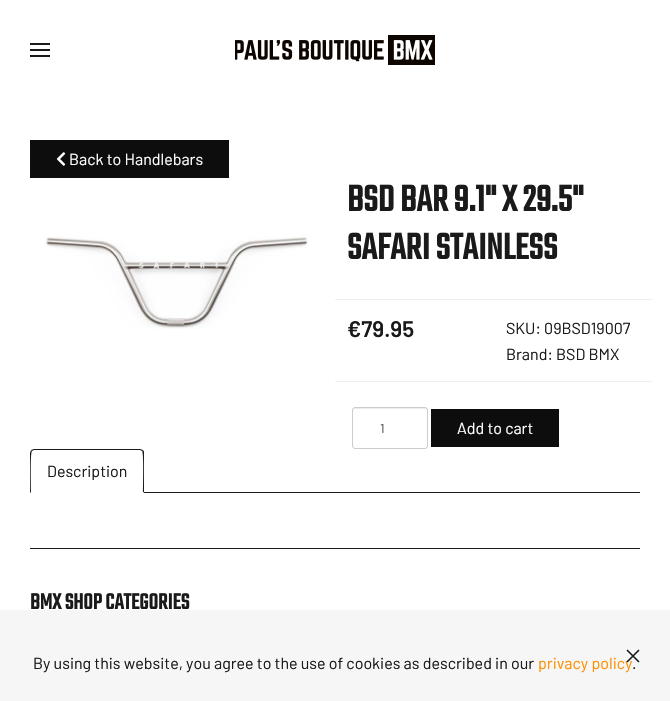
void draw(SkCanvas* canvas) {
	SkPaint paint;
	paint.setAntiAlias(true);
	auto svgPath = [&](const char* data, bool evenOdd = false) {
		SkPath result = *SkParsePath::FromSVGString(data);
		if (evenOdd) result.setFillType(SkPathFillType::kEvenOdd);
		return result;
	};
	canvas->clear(0xffffffff);
	paint.setColor(0xff1a1a1a);
	canvas->drawRect(SkRect::MakeXYWH(30, 43, 20, 2), paint);
	canvas->drawRect(SkRect::MakeXYWH(30, 49, 20, 2), paint);
	canvas->drawRect(SkRect::MakeXYWH(30, 55, 20, 2), paint);
	canvas->drawImageRect(SkImages::DeferredFromEncodedData(SkData::MakeFromFileName("img1.png")), SkRect::MakeXYWH(235, 35, 200, 30), SkSamplingOptions());
	paint.setColor(0xff0d0d0d);
	canvas->drawRect(SkRect::MakeXYWH(30, 140, 199, 38), paint);
	canvas->drawImageRect(SkImages::DeferredFromEncodedData(SkData::MakeFromFileName("img2.png")), SkRect::MakeXYWH(56, 152, 10, 14), SkSamplingOptions());
	SkFont f1(fontMgr->matchFamilyStyle("Barlow", SkFontStyle::Normal()), 16);
	f1.setSubpixel(true);
	paint.setColor(0xffffffff);
	canvas->drawString("Back to Handlebars", 69, 165, f1, paint);
	canvas->drawImageRect(SkImages::DeferredFromEncodedData(SkData::MakeFromFileName("img3.png")), SkRect::MakeXYWH(45, 236, 263, 93), SkSamplingOptions());
	SkFont f2(fontMgr->matchFamilyStyle("Teko", SkFontStyle::Bold()), 40);
	f2.setSubpixel(true);
	paint.setColor(0xff1a1a1a);
	canvas->drawString("BSD BAR 9.1\" X 29.5\"", 347, 211, f2, paint);
	canvas->drawString("SAFARI STAINLESS", 347, 259, f2, paint);
	paint.setColor(0xffefefef);
	canvas->drawRect(SkRect::MakeXYWH(335, 299, 317, 1), paint);
	canvas->drawRect(SkRect::MakeXYWH(335, 381, 317, 1), paint);
	SkFont f3(fontMgr->matchFamilyStyle("Barlow", SkFontStyle(600, SkFontStyle::kNormal_Width, SkFontStyle::kUpright_Slant)), 22.5);
	f3.setSubpixel(true);
	paint.setColor(0xff1a1a1a);
	canvas->drawString("€79.95", 347, 337, f3, paint);
	canvas->drawString("SKU: 09BSD19007", 506, 334, f1, paint);
	canvas->drawString("Brand: BSD BMX", 506, 360, f1, paint);
	paint.setColor(0xffececec);
	canvas->drawPath(svgPath("M355 409H425C426 409 427 410 427 411C427 405 417 408 413 408H367C363 408 353 405 353 411C353 410 354 409 355 409Z"), paint);
	paint.setStroke(true);
	paint.setStrokeWidth(1);
	paint.setColor(0xffcccccc);
	canvas->drawRoundRect(SkRect::MakeXYWH(352.5, 407.5, 75, 41), 2.5, 2.5, paint);
	SkFont f4(fontMgr->matchFamilyStyle("Barlow", SkFontStyle::Normal()), 13);
	f4.setSubpixel(true);
	paint.setStroke(false);
	paint.setColor(0xff555555);
	canvas->drawString("1", 380, 433, f4, paint);
	paint.setColor(0xff0d0d0d);
	canvas->drawRect(SkRect::MakeXYWH(431, 409, 128, 38), paint);
	paint.setColor(0xffffffff);
	canvas->drawString("Add to cart", 457, 434, f1, paint);
	paint.setColor(0xff1a1a1a);
	canvas->drawRect(SkRect::MakeXYWH(144, 492, 496, 1), paint);
	canvas->drawPath(svgPath("M34 449L31 450L32 451L34 450H140L142 451L143 450L140 449Z"), paint);
	canvas->drawPath(svgPath("M144 493V453C144 452 144 451 143 450L142 451C144 453 143 487 143 492Z"), paint);
	paint.setColor(0xffffffff);
	canvas->drawPath(svgPath("M144 493L143 492H31L30 493Z"), paint);
	paint.setColor(0xff1a1a1a);
	canvas->drawPath(svgPath("M30 493L31 492C31 487 30 453 32 451L31 450L30 453Z"), paint);
	canvas->drawString("Description", 47, 477, f1, paint);
	canvas->drawRect(SkRect::MakeXYWH(30, 548, 610, 1), paint);
	SkFont f5(fontMgr->matchFamilyStyle("Teko", SkFontStyle::Bold()), 24);
	f5.setSubpixel(true);
	canvas->drawString("BMX SHOP CATEGORIES", 30, 609, f5, paint);
	paint.setColor(0xfff6f6f6);
	canvas->drawRect(SkRect::MakeXYWH(0, 610, 670, 91), paint);
	paint.setColor(0xffff9000);
	canvas->drawString("privacy policy", 538, 669, f1, paint);
	paint.setStroke(true);
	paint.setStrokeWidth(1.6);
	paint.setColor(0xff1a1a1a);
	canvas->drawPath(svgPath("M627 650L639 662M639 650L627 662"), paint);
	paint.setStroke(false);
	canvas->drawString("By using this website, you agree to the use of cookies as described in our", 33, 669, f1, paint);
	canvas->drawString(".", 632, 669, f1, paint);
}
